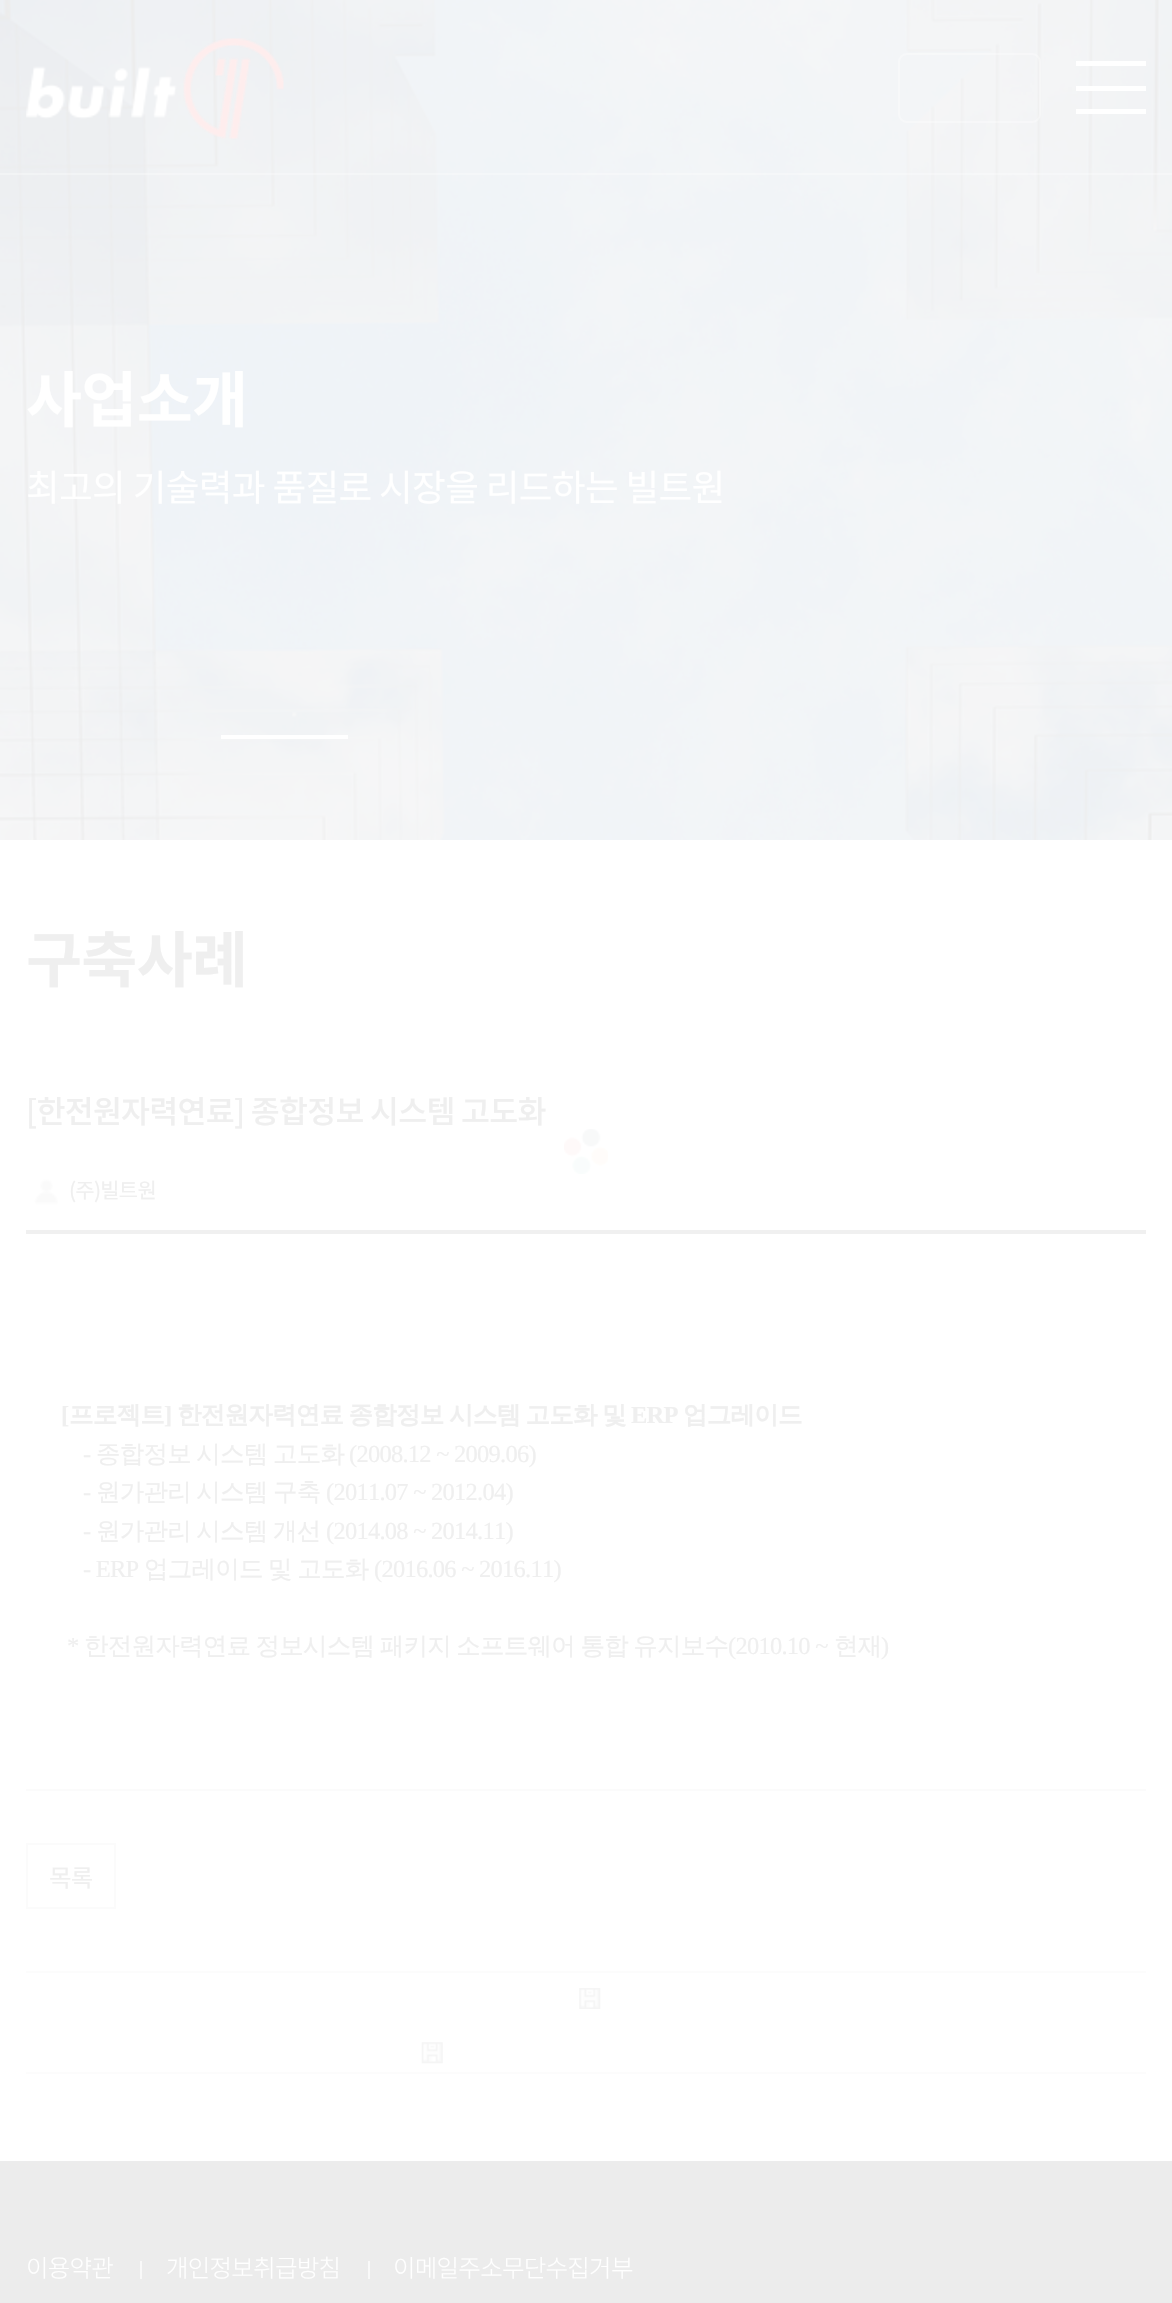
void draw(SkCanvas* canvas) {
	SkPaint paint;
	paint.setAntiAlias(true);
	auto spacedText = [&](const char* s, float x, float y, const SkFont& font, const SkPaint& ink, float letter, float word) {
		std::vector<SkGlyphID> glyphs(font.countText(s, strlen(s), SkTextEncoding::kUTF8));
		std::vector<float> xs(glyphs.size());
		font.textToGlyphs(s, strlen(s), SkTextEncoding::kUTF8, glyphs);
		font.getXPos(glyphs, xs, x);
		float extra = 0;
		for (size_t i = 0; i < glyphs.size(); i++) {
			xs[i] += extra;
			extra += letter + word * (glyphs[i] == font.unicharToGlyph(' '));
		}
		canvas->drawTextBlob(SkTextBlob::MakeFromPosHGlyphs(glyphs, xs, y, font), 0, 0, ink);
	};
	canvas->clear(0xffffffff);
	canvas->drawImageRect(SkImages::DeferredFromEncodedData(SkData::MakeFromFileName("img2.png")), SkRect::MakeXYWH(0, 0, 1172, 840), SkSamplingOptions());
	paint.setColor(0x4dffffff);
	canvas->drawRect(SkRect::MakeXYWH(0, 173, 1172, 2), paint);
	canvas->drawImageRect(SkImages::DeferredFromEncodedData(SkData::MakeFromFileName("img1.png")), SkRect::MakeXYWH(26, 38, 258, 102), SkSamplingOptions());
	paint.setStroke(true);
	paint.setStrokeWidth(2);
	paint.setColor(0x54ffffff);
	canvas->drawRoundRect(SkRect::MakeXYWH(899, 54, 141, 68), 8, 8, paint);
	paint.setStroke(false);
	paint.setColor(0xffffffff);
	canvas->drawRect(SkRect::MakeXYWH(1076, 61, 70, 5), paint);
	canvas->drawRect(SkRect::MakeXYWH(1076, 86, 70, 5), paint);
	canvas->drawRect(SkRect::MakeXYWH(1076, 109, 70, 5), paint);
	SkFont f1(fontMgr->matchFamilyStyle("Noto Sans KR", SkFontStyle::Bold()), 61);
	f1.setSubpixel(true);
	spacedText("사업소개", 26, 422, f1, paint, -0.75, 0);
	SkFont f2(fontMgr->matchFamilyStyle("Noto Sans KR", SkFontStyle::Normal()), 36.75);
	f2.setSubpixel(true);
	spacedText("최고의 기술력과 품질로 시장을 리드하는 빌트원", 26, 501, f2, paint, -0.75, 0);
	canvas->drawRect(SkRect::MakeXYWH(221, 735, 127, 4), paint);
	paint.setColor(0xffefefef);
	spacedText("구축사례", 26, 982, f1, paint, -0.75, 0);
	SkFont f3(fontMgr->matchFamilyStyle("Noto Sans KR", SkFontStyle(500, SkFontStyle::kNormal_Width, SkFontStyle::kUpright_Slant)), 31.5);
	f3.setSubpixel(true);
	spacedText("[한전원자력연료] 종합정보 시스템 고도화", 26, 1123, f3, paint, -0.75, 0);
	canvas->drawImageRect(SkImages::DeferredFromEncodedData(SkData::MakeFromFileName("img3.png")), SkRect::MakeXYWH(34, 1179, 25, 26), SkSamplingOptions());
	SkFont f4(fontMgr->matchFamilyStyle("Noto Sans KR", SkFontStyle::Normal()), 21);
	f4.setSubpixel(true);
	spacedText("(주)빌트원", 69, 1198, f4, paint, -0.75, 0);
	paint.setColor(0xfff0f0f0);
	canvas->drawRect(SkRect::MakeXYWH(26, 1230, 1120, 4), paint);
	paint.setColor(0xfffbfbfb);
	canvas->drawRect(SkRect::MakeXYWH(26, 1789, 1120, 2), paint);
	SkFont f5(fontMgr->matchFamilyStyle("Liberation Serif", SkFontStyle::Bold()), 24.5);
	f5.setSubpixel(true);
	paint.setColor(0xffefefef);
	spacedText("[", 61, 1423, f5, paint, -0.75, 0);
	SkFont f6(fontMgr->matchFamilyStyle("WenQuanYi Zen Hei", SkFontStyle::Bold()), 24.5);
	f6.setSubpixel(true);
	spacedText("프로젝트", 69, 1423, f6, paint, -0.75, 0);
	spacedText("]", 164, 1423, f5, paint, -0.75, 0);
	spacedText("한전원자력연료 종합정보 시스템 고도화 및", 177, 1423, f6, paint, -0.75, -1.25);
	spacedText("ERP", 631, 1423, f5, paint, -0.75, 0);
	spacedText("업그레이드", 683, 1423, f6, paint, -0.75, 0);
	SkFont f7(fontMgr->matchFamilyStyle("Liberation Serif", SkFontStyle::Normal()), 24.5);
	f7.setSubpixel(true);
	spacedText("-", 83, 1462, f7, paint, -0.75, 0);
	SkFont f8(fontMgr->matchFamilyStyle("WenQuanYi Zen Hei", SkFontStyle(500, SkFontStyle::kNormal_Width, SkFontStyle::kUpright_Slant)), 24.5);
	f8.setSubpixel(true);
	spacedText("종합정보 시스템 고도화", 96, 1462, f8, paint, -0.75, -1.25);
	spacedText("(2008.12 ~ 2009.06)", 349, 1462, f7, paint, -0.75, 0);
	spacedText("-", 83, 1500, f7, paint, -0.75, 0);
	spacedText("원가관리 시스템 구축", 96, 1500, f8, paint, -0.75, -1.25);
	spacedText("(2011.07 ~ 2012.04)", 326, 1500, f7, paint, -0.75, 0);
	spacedText("-", 83, 1539, f7, paint, -0.75, 0);
	spacedText("원가관리 시스템 개선", 96, 1539, f8, paint, -0.75, -1.25);
	spacedText("(2014.08 ~ 2014.11)", 326, 1539, f7, paint, -0.75, 0);
	spacedText("- ERP", 83, 1577, f7, paint, -0.75, 0);
	spacedText("업그레이드 및 고도화", 144, 1577, f8, paint, -0.75, -1.25);
	spacedText("(2016.06 ~ 2016.11)", 374, 1577, f7, paint, -0.75, 0);
	spacedText("*", 67, 1654, f7, paint, -0.75, 0);
	spacedText("한전원자력연료 정보시스템 패키지 소프트웨어 통합 유지보수", 84, 1654, f8, paint, -0.75, -1.25);
	spacedText("(2010.10 ~", 728, 1654, f7, paint, -0.75, 0);
	spacedText("현재", 834, 1654, f8, paint, -0.75, 0);
	spacedText(")", 881, 1654, f7, paint, -0.75, 0);
	paint.setStroke(true);
	paint.setColor(0xfffbfbfb);
	canvas->drawRect(SkRect::MakeXYWH(27, 1844, 88, 64), paint);
	SkFont f9(fontMgr->matchFamilyStyle("Noto Sans KR", SkFontStyle::Normal()), 24.5);
	f9.setSubpixel(true);
	paint.setStroke(false);
	paint.setColor(0xffefefef);
	spacedText("목록", 49, 1887, f9, paint, -0.75, 0);
	paint.setColor(0xfffcfcfc);
	canvas->drawRect(SkRect::MakeXYWH(26, 1971, 1120, 2), paint);
	canvas->drawImageRect(SkImages::DeferredFromEncodedData(SkData::MakeFromFileName("img4.png")), SkRect::MakeXYWH(579, 1988, 22, 21), SkSamplingOptions());
	canvas->drawRect(SkRect::MakeXYWH(26, 2072, 1120, 2), paint);
	canvas->drawImageRect(SkImages::DeferredFromEncodedData(SkData::MakeFromFileName("img5.png")), SkRect::MakeXYWH(421, 2042, 22, 22), SkSamplingOptions());
	canvas->drawImageRect(SkImages::DeferredFromEncodedData(SkData::MakeFromFileName("img6.png")), SkRect::MakeXYWH(564, 1129, 44, 45), SkSamplingOptions());
	paint.setColor(0xffececec);
	canvas->drawRect(SkRect::MakeXYWH(0, 2161, 1172, 142), paint);
	SkFont f10(fontMgr->matchFamilyStyle("Noto Sans KR", SkFontStyle(300, SkFontStyle::kNormal_Width, SkFontStyle::kUpright_Slant)), 24.5);
	f10.setSubpixel(true);
	paint.setColor(0xffffffff);
	spacedText("이용약관", 26, 2277, f10, paint, -0.75, 0);
	paint.setColor(0xfff9f9f9);
	canvas->drawRect(SkRect::MakeXYWH(140, 2261, 2, 18), paint);
	paint.setColor(0xffffffff);
	spacedText("개인정보취급방침", 166, 2277, f10, paint, -0.75, 0);
	paint.setColor(0xfff9f9f9);
	canvas->drawRect(SkRect::MakeXYWH(368, 2261, 2, 18), paint);
	paint.setColor(0xffffffff);
	spacedText("이메일주소무단수집거부", 393, 2277, f10, paint, -0.75, 0);
}
